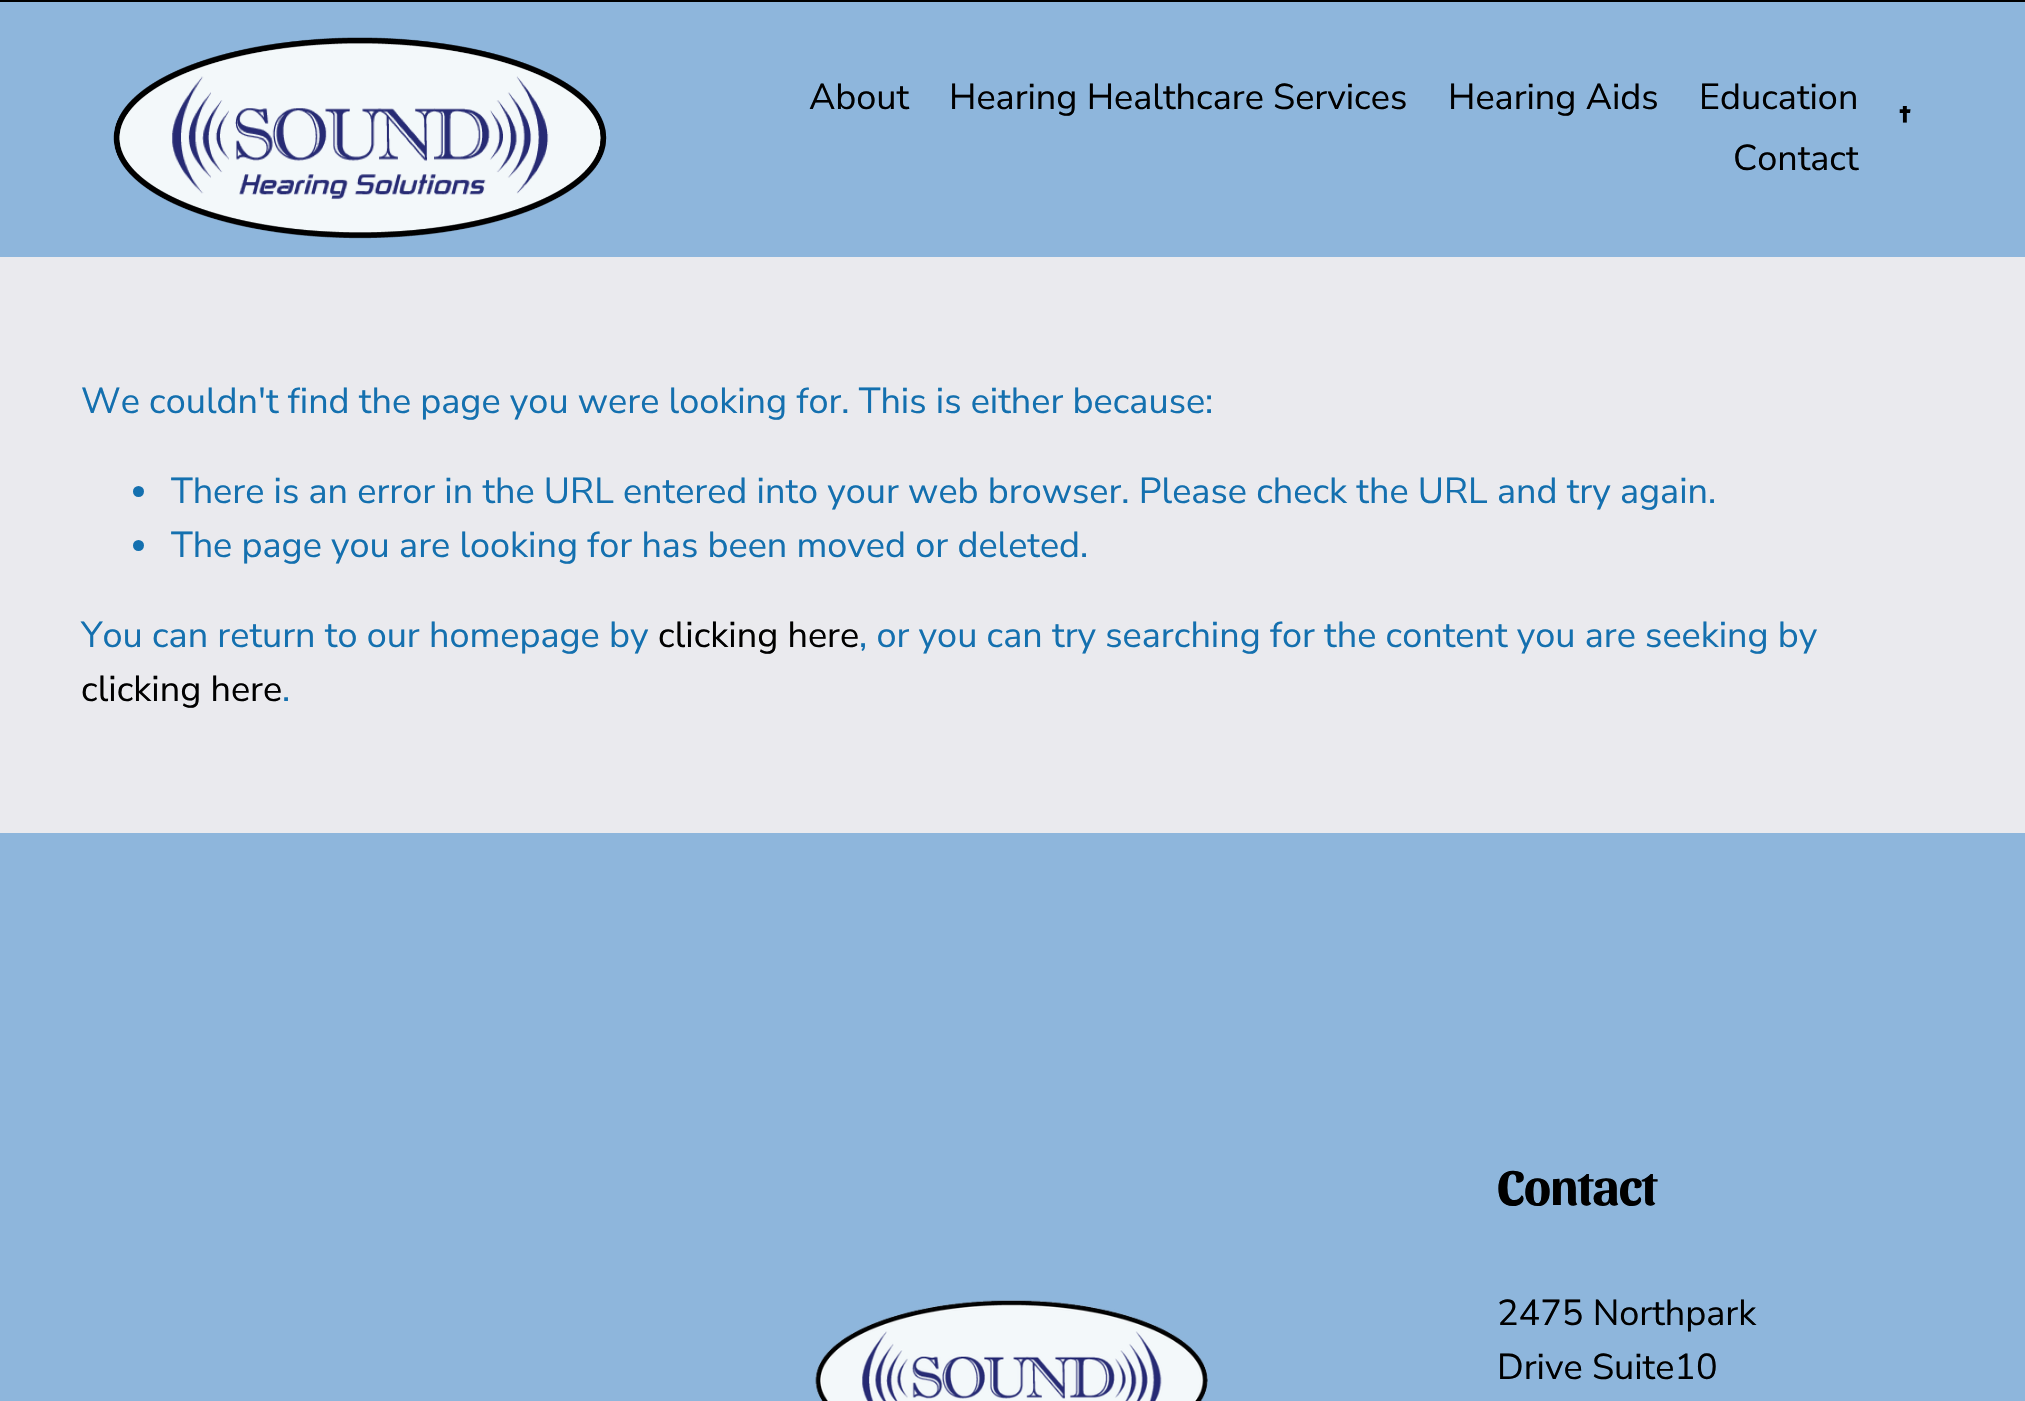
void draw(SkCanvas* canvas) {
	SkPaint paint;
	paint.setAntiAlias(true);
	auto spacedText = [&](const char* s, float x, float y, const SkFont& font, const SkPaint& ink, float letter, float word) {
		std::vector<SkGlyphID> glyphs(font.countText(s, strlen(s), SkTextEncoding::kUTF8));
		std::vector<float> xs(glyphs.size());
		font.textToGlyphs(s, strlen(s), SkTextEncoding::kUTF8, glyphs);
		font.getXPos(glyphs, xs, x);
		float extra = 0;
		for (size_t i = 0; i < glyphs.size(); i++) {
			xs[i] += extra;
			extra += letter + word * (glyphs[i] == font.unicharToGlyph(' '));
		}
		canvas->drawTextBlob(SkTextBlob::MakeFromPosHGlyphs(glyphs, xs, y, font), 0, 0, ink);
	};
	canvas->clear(0xffeaeaee);
	paint.setColor(0xff000000);
	canvas->drawRect(SkRect::MakeXYWH(0, 0, 2025, 2), paint);
	paint.setColor(0xff8eb6dc);
	canvas->drawRect(SkRect::MakeXYWH(0, 2, 2025, 255), paint);
	canvas->drawImageRect(SkImages::DeferredFromEncodedData(SkData::MakeFromFileName("img1.png")), SkRect::MakeXYWH(113, 37, 494, 202), SkSamplingOptions());
	SkFont f1(fontMgr->matchFamilyStyle("Nunito Sans", SkFontStyle::Normal()), 36);
	f1.setSubpixel(true);
	paint.setColor(0xff000000);
	canvas->drawString("About", 809, 109, f1, paint);
	canvas->drawString("Hearing Healthcare Services", 949, 109, f1, paint);
	canvas->drawString("Hearing Aids", 1448, 109, f1, paint);
	canvas->drawString("Education", 1699, 109, f1, paint);
	canvas->drawString("Contact", 1733, 170, f1, paint);
	canvas->drawImageRect(SkImages::DeferredFromEncodedData(SkData::MakeFromFileName("img2.png")), SkRect::MakeXYWH(1899, 106, 12, 17), SkSamplingOptions());
	paint.setColor(0xff1470af);
	canvas->drawString("We couldn't find the page you were looking for. This is either because:", 81, 413, f1, paint);
	canvas->drawCircle(138.5, 491.5, 5.5, paint);
	canvas->drawString("There is an error in the URL entered into your web browser. Please check the URL and try again.", 171, 503, f1, paint);
	canvas->drawCircle(138.5, 545.5, 5.5, paint);
	canvas->drawString("The page you are looking for has been moved or deleted.", 171, 557, f1, paint);
	canvas->drawString("You can return to our homepage by", 81, 647, f1, paint);
	paint.setColor(0xff000000);
	canvas->drawString("clicking here", 658, 647, f1, paint);
	paint.setColor(0xff1470af);
	canvas->drawString(", or you can try searching for the content you are seeking by", 859, 647, f1, paint);
	paint.setColor(0xff000000);
	canvas->drawString("clicking here", 81, 701, f1, paint);
	paint.setColor(0xff1470af);
	canvas->drawString(".", 282, 701, f1, paint);
	paint.setColor(0xff8eb6dc);
	canvas->drawRect(SkRect::MakeXYWH(0, 833, 2025, 568), paint);
	canvas->drawImageRect(SkImages::DeferredFromEncodedData(SkData::MakeFromFileName("img3.png")), SkRect::MakeXYWH(815, 1300, 393, 101), SkSamplingOptions());
	SkFont f2(fontMgr->matchFamilyStyle("Sansita", SkFontStyle::Bold()), 50.5);
	f2.setSubpixel(true);
	paint.setColor(0xff000000);
	spacedText("Contact", 1497, 1205, f2, paint, -1, 0);
	canvas->drawString("2475 Northpark", 1497, 1325, f1, paint);
	canvas->drawString("Drive Suite10", 1497, 1379, f1, paint);
}
